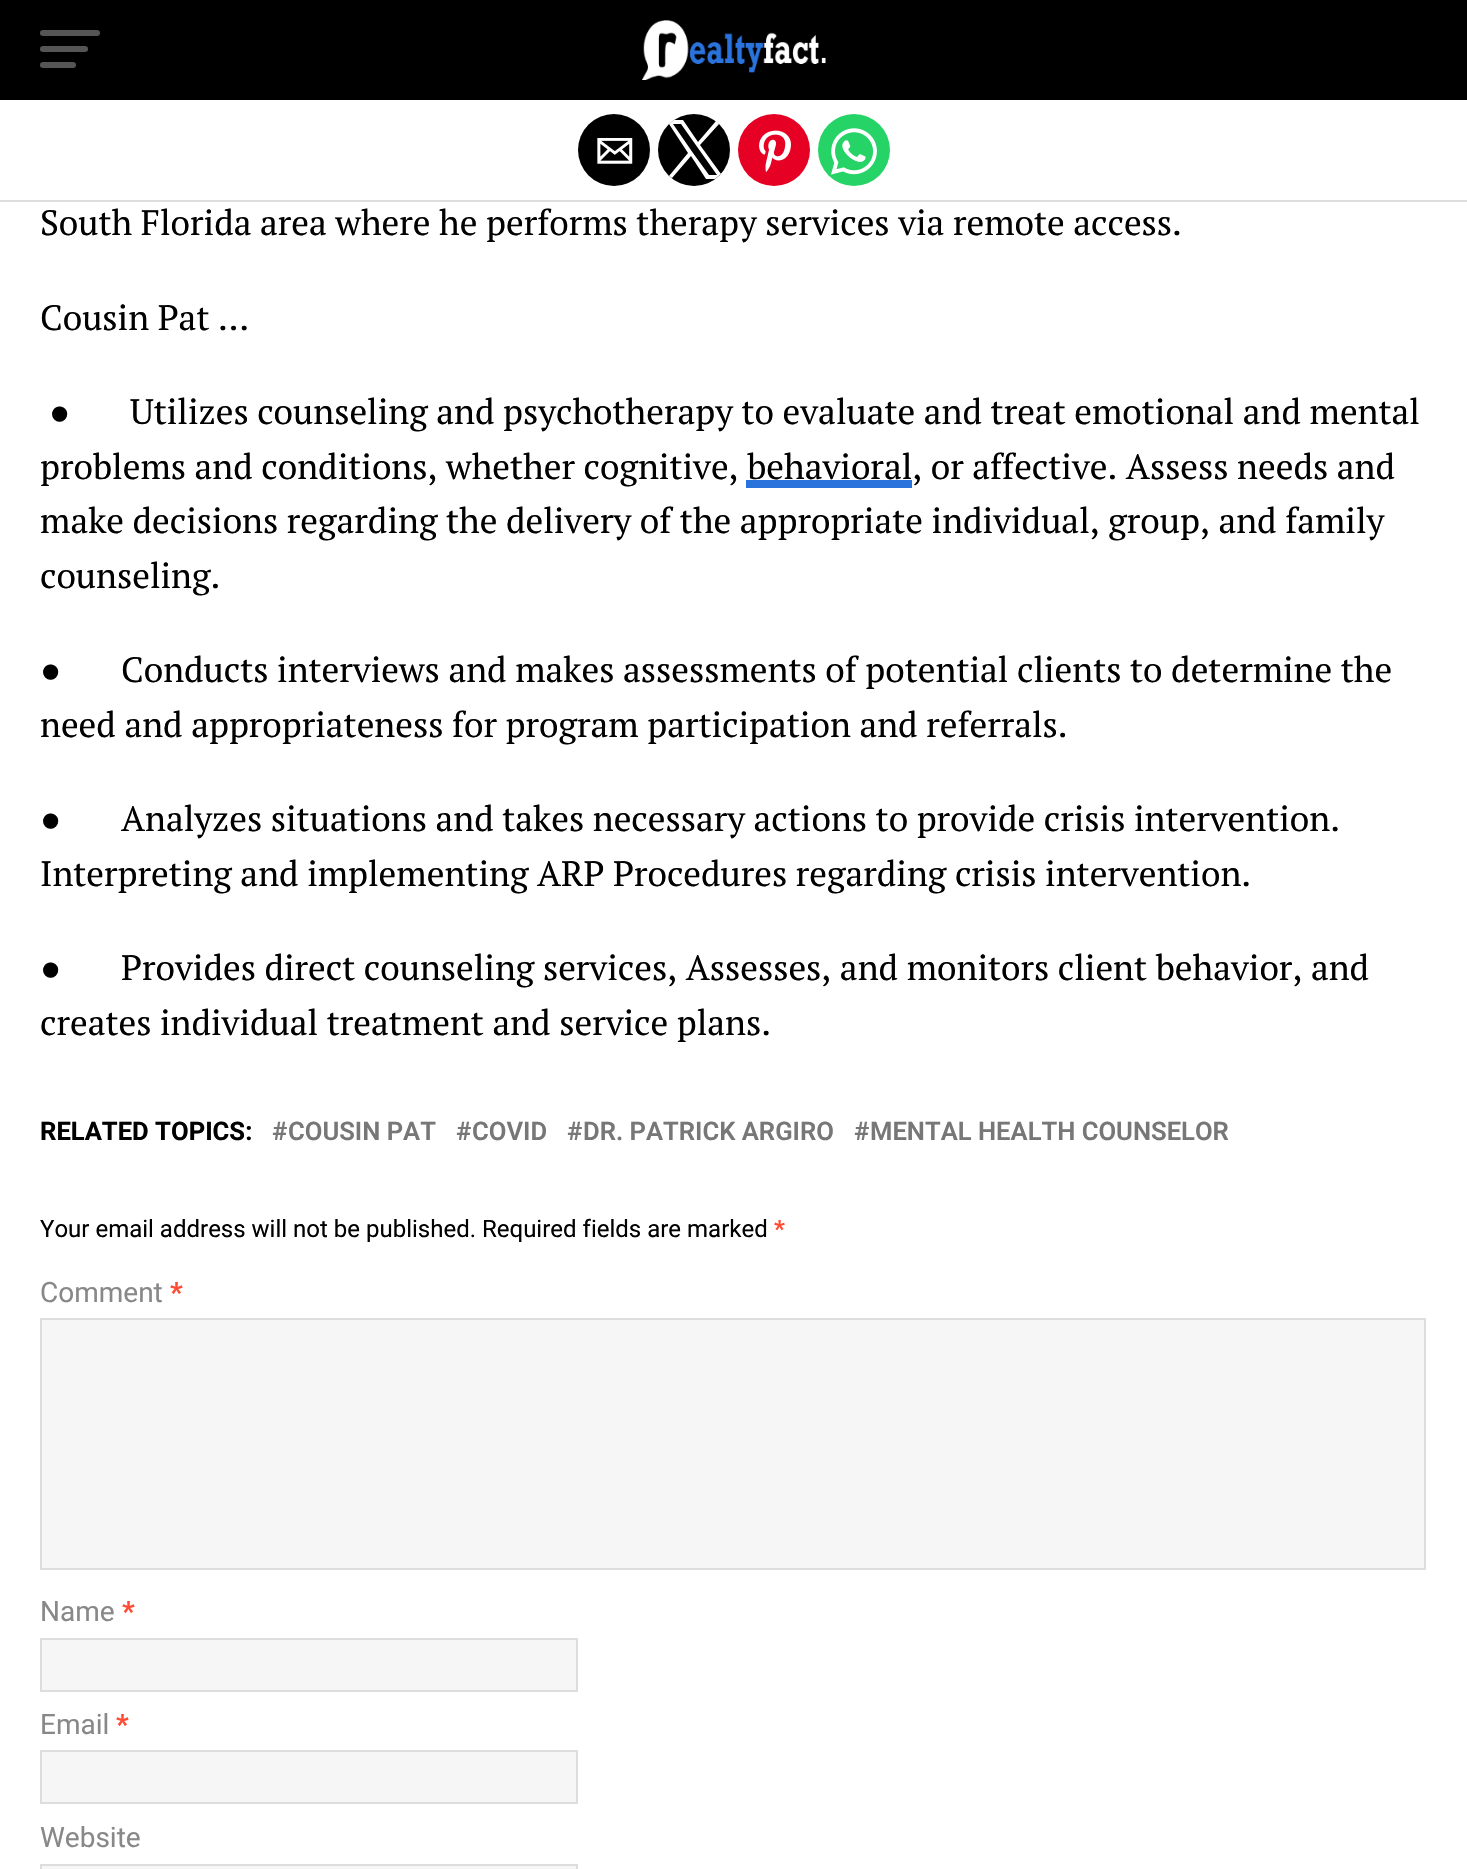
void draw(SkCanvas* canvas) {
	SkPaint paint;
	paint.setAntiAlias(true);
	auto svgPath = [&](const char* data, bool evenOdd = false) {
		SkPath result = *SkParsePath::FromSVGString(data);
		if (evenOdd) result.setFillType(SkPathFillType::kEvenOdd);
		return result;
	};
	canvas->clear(0xffffffff);
	paint.setColor(0xff000000);
	canvas->drawRect(SkRect::MakeXYWH(0, 0, 1467, 100), paint);
	paint.setColor(0xff555555);
	canvas->drawRoundRect(SkRect::MakeXYWH(40, 30, 60, 6), 3, 3, paint);
	canvas->drawRoundRect(SkRect::MakeXYWH(40, 46, 48, 6), 3, 3, paint);
	canvas->drawRoundRect(SkRect::MakeXYWH(40, 62, 36, 6), 3, 3, paint);
	canvas->drawImageRect(SkImages::DeferredFromEncodedData(SkData::MakeFromFileName("img1.png")), SkRect::MakeXYWH(642, 20, 184, 60), SkSamplingOptions());
	paint.setColor(0xffdddddd);
	canvas->drawRect(SkRect::MakeXYWH(0, 200, 1467, 2), paint);
	paint.setColor(0xff000000);
	canvas->drawCircle(614, 150, 36, paint);
	canvas->drawImageRect(SkImages::DeferredFromEncodedData(SkData::MakeFromFileName("img2.png")), SkRect::MakeXYWH(597, 138, 36, 26), SkSamplingOptions());
	canvas->drawCircle(694, 150, 36, paint);
	paint.setColor(0xffffffff);
	canvas->drawPath(svgPath("M700 145L721 174L715 179H706L691 156L672 178L669 176L688 153L669 124L674 120H683L698 142L716 121L719 124ZM693 153L709 175H717L681 124H673Z", true), paint);
	paint.setColor(0xffe60023);
	canvas->drawCircle(774, 150, 36, paint);
	canvas->drawImageRect(SkImages::DeferredFromEncodedData(SkData::MakeFromFileName("img3.png")), SkRect::MakeXYWH(759, 130, 32, 42), SkSamplingOptions());
	paint.setColor(0xff25d366);
	canvas->drawCircle(854, 150, 36, paint);
	canvas->drawImageRect(SkImages::DeferredFromEncodedData(SkData::MakeFromFileName("img4.png")), SkRect::MakeXYWH(831, 128, 46, 47), SkSamplingOptions());
	SkFont f1(fontMgr->matchFamilyStyle("PT Serif", SkFontStyle::Normal()), 35.2);
	f1.setSubpixel(true);
	paint.setColor(0xff000000);
	canvas->drawString("South Florida area where he performs therapy services via remote access.", 40, 235, f1, paint);
	canvas->drawString("Cousin Pat …", 40, 330, f1, paint);
	SkFont f2(fontMgr->matchFamilyStyle("Liberation Sans", SkFontStyle::Normal()), 35.2);
	f2.setSubpixel(true);
	canvas->drawString("●", 49, 424, f2, paint);
	canvas->drawString("Utilizes counseling and psychotherapy to evaluate and treat emotional and mental", 130, 424, f1, paint);
	canvas->drawString("problems and conditions, whether cognitive, behavioral, or affective. Assess needs and", 40, 479, f1, paint);
	paint.setColor(0xff2a73dd);
	canvas->drawRect(SkRect::MakeXYWH(746, 480, 166, 8), paint);
	paint.setColor(0xff000000);
	canvas->drawString("make decisions regarding the delivery of the appropriate individual, group, and family", 40, 533, f1, paint);
	canvas->drawString("counseling.", 40, 588, f1, paint);
	canvas->drawString("●", 40, 682, f2, paint);
	canvas->drawString("Conducts interviews and makes assessments of potential clients to determine the", 121, 682, f1, paint);
	canvas->drawString("need and appropriateness for program participation and referrals.", 40, 737, f1, paint);
	canvas->drawString("●", 40, 831, f2, paint);
	canvas->drawString("Analyzes situations and takes necessary actions to provide crisis intervention.", 121, 831, f1, paint);
	canvas->drawString("Interpreting and implementing ARP Procedures regarding crisis intervention.", 40, 886, f1, paint);
	canvas->drawString("●", 40, 980, f2, paint);
	canvas->drawString("Provides direct counseling services, Assesses, and monitors client behavior, and", 121, 980, f1, paint);
	canvas->drawString("creates individual treatment and service plans.", 40, 1035, f1, paint);
	SkFont f3(fontMgr->matchFamilyStyle("Roboto", SkFontStyle::Bold()), 25.6);
	f3.setSubpixel(true);
	canvas->drawString("RELATED TOPICS:", 40, 1140, f3, paint);
	SkFont f4(fontMgr->matchFamilyStyle("Roboto", SkFontStyle(600, SkFontStyle::kNormal_Width, SkFontStyle::kUpright_Slant)), 25.6);
	f4.setSubpixel(true);
	paint.setColor(0xff777777);
	canvas->drawString("#", 272, 1140, f4, paint);
	canvas->drawString("COUSIN PAT", 288, 1140, f4, paint);
	canvas->drawString("#", 456, 1140, f4, paint);
	canvas->drawString("COVID", 472, 1140, f4, paint);
	canvas->drawString("#", 567, 1140, f4, paint);
	canvas->drawString("DR. PATRICK ARGIRO", 583, 1140, f4, paint);
	canvas->drawString("#", 854, 1140, f4, paint);
	canvas->drawString("MENTAL HEALTH COUNSELOR", 870, 1140, f4, paint);
	SkFont f5(fontMgr->matchFamilyStyle("Roboto", SkFontStyle::Normal()), 24);
	f5.setSubpixel(true);
	paint.setColor(0xff000000);
	canvas->drawString("Your email address will not be published. Required fields are marked", 40, 1237, f5, paint);
	SkFont f6(fontMgr->matchFamilyStyle("Roboto", SkFontStyle::Bold()), 24);
	f6.setSubpixel(true);
	paint.setColor(0xffff4b33);
	canvas->drawString("*", 774, 1237, f6, paint);
	SkFont f7(fontMgr->matchFamilyStyle("Roboto", SkFontStyle::Normal()), 28);
	f7.setSubpixel(true);
	paint.setColor(0xff888888);
	canvas->drawString("Comment", 40, 1302, f7, paint);
	SkFont f8(fontMgr->matchFamilyStyle("Roboto", SkFontStyle::Bold()), 28);
	f8.setSubpixel(true);
	paint.setColor(0xffff4b33);
	canvas->drawString("*", 170, 1302, f8, paint);
	paint.setColor(0xfff6f6f6);
	canvas->drawRect(SkRect::MakeXYWH(41, 1319, 1384, 250), paint);
	paint.setStroke(true);
	paint.setStrokeWidth(2);
	paint.setColor(0xffdddddd);
	canvas->drawRect(SkRect::MakeXYWH(41, 1319, 1384, 250), paint);
	paint.setStroke(false);
	paint.setColor(0xff888888);
	canvas->drawString("Name", 40, 1621, f7, paint);
	paint.setColor(0xffff4b33);
	canvas->drawString("*", 122, 1621, f8, paint);
	paint.setColor(0xfff6f6f6);
	canvas->drawRect(SkRect::MakeXYWH(41, 1639, 536, 52), paint);
	paint.setStroke(true);
	paint.setColor(0xffdddddd);
	canvas->drawRect(SkRect::MakeXYWH(41, 1639, 536, 52), paint);
	paint.setStroke(false);
	paint.setColor(0xff888888);
	canvas->drawString("Email", 40, 1734, f7, paint);
	paint.setColor(0xffff4b33);
	canvas->drawString("*", 116, 1734, f8, paint);
	paint.setColor(0xfff6f6f6);
	canvas->drawRect(SkRect::MakeXYWH(41, 1751, 536, 52), paint);
	paint.setStroke(true);
	paint.setColor(0xffdddddd);
	canvas->drawRect(SkRect::MakeXYWH(41, 1751, 536, 52), paint);
	paint.setStroke(false);
	paint.setColor(0xff888888);
	canvas->drawString("Website", 40, 1847, f7, paint);
	paint.setColor(0xfff6f6f6);
	canvas->drawRect(SkRect::MakeXYWH(41, 1865, 536, 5), paint);
	paint.setStroke(true);
	paint.setColor(0xffdddddd);
	canvas->drawRect(SkRect::MakeXYWH(41, 1865, 536, 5), paint);
}
